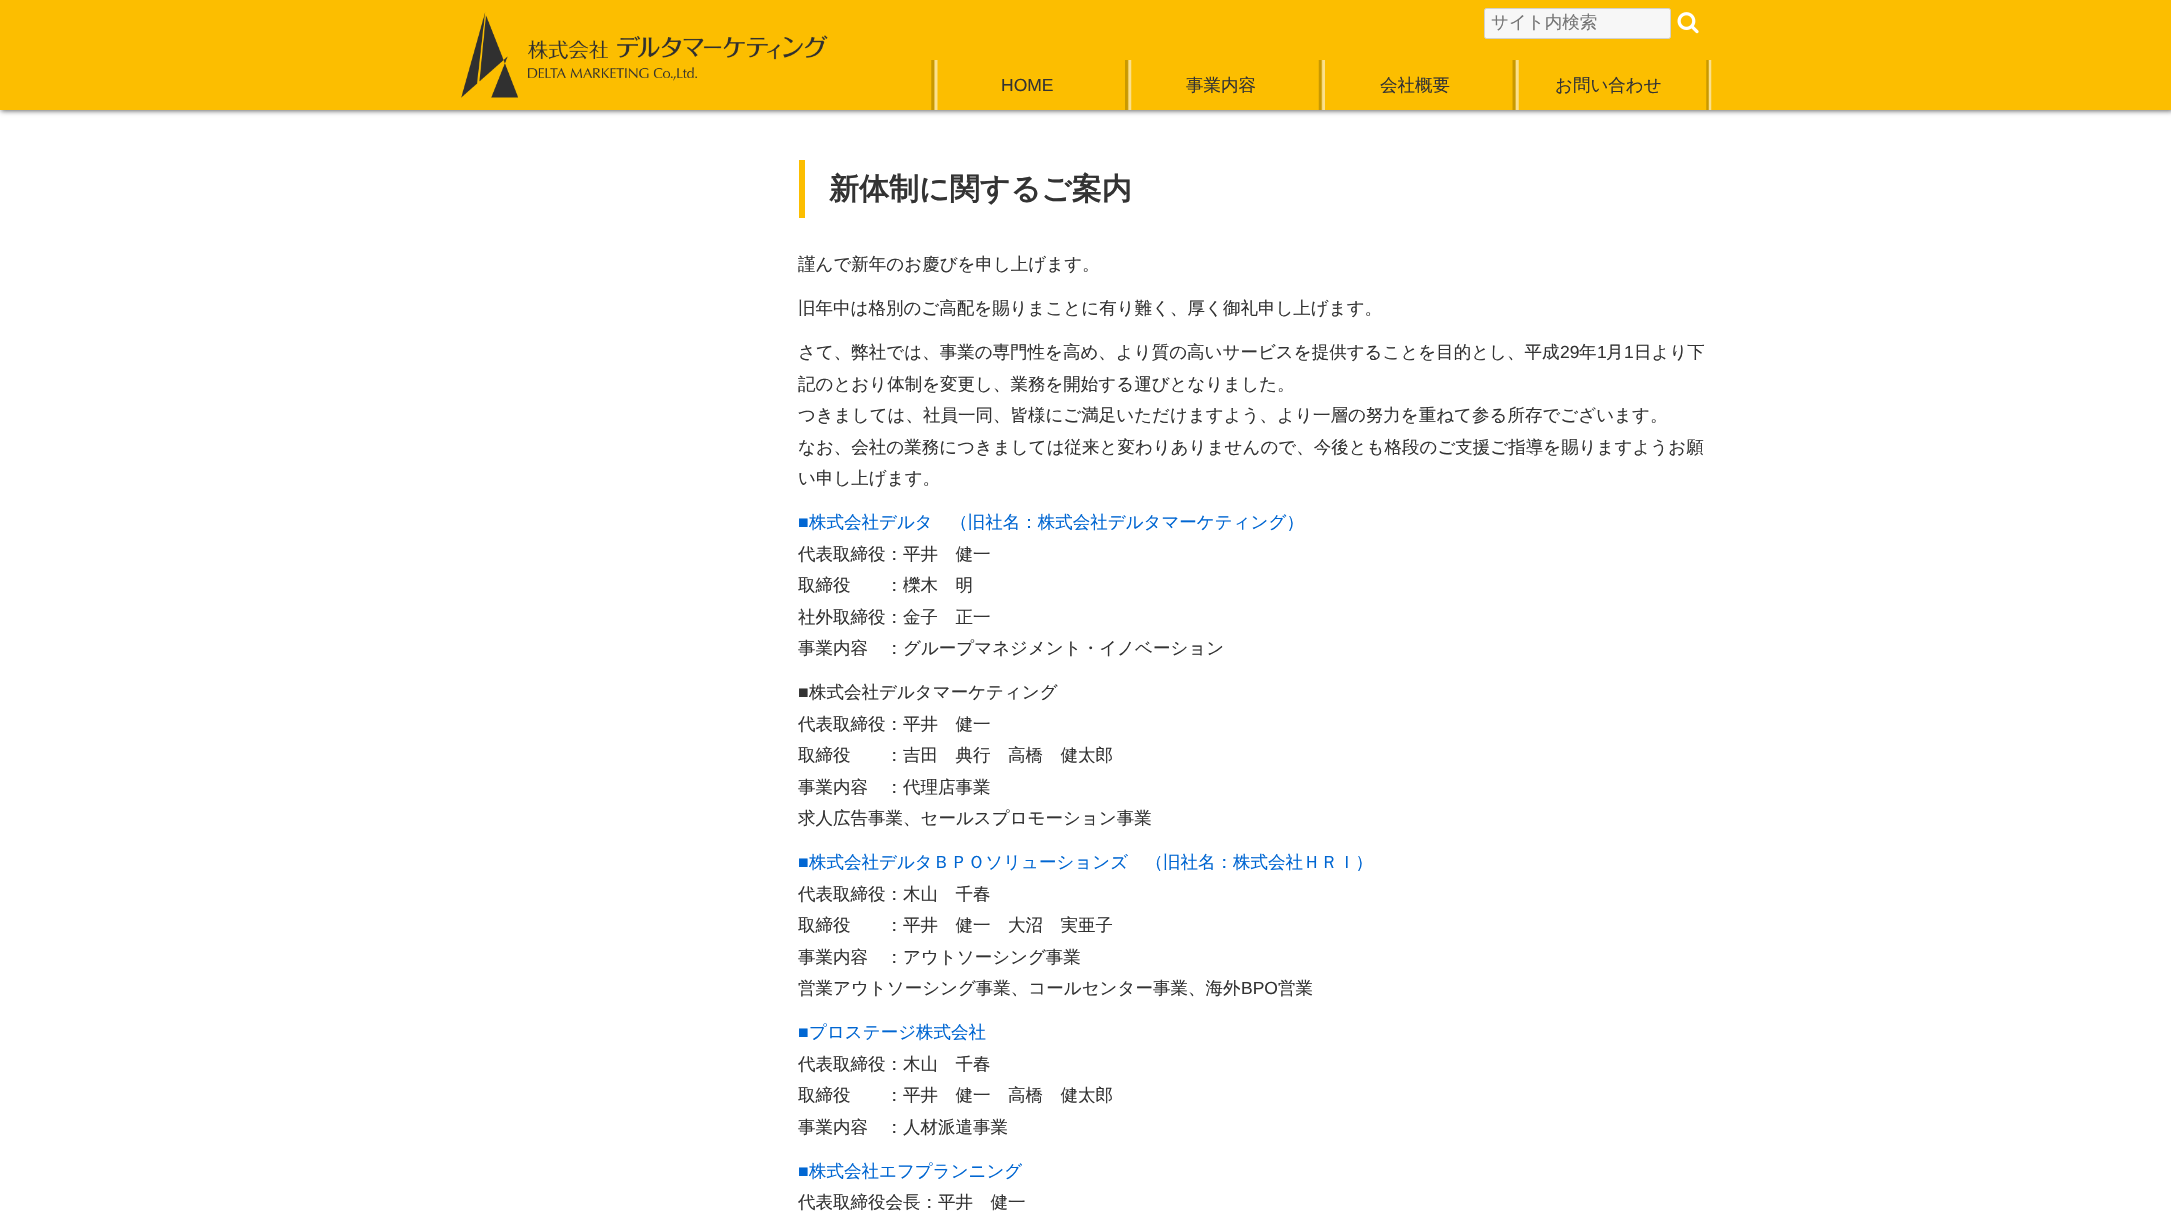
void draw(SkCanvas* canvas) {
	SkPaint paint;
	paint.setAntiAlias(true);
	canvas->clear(0xffffffff);
	paint.setColor(0xff666666);
	paint.setMaskFilter(SkMaskFilter::MakeBlur(kNormal_SkBlurStyle, 2.5));
	canvas->drawRect(SkRect::MakeXYWH(1, 1, 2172, 110), paint);
	paint.setMaskFilter(nullptr);
	paint.setColor(0xfffcbe00);
	canvas->drawRect(SkRect::MakeXYWH(0, 0, 2171, 110), paint);
	canvas->drawImageRect(SkImages::DeferredFromEncodedData(SkData::MakeFromFileName("img1.png")), SkRect::MakeXYWH(461, 12, 367, 86), SkSamplingOptions());
	paint.setColor(0xfff7f7f7);
	canvas->drawRoundRect(SkRect::MakeXYWH(1484.5, 8.5, 186, 30), 2, 2, paint);
	paint.setStroke(true);
	paint.setStrokeWidth(1);
	paint.setColor(0xffd1d1d1);
	canvas->drawRoundRect(SkRect::MakeXYWH(1484.5, 8.5, 186, 30), 2, 2, paint);
	SkFont f1(fontMgr->matchFamilyStyle("WenQuanYi Zen Hei", SkFontStyle(500, SkFontStyle::kNormal_Width, SkFontStyle::kUpright_Slant)), 17.5);
	f1.setSubpixel(true);
	paint.setStroke(false);
	paint.setColor(0xff757575);
	canvas->drawString("サイト内検索", 1491, 28, f1, paint);
	canvas->drawImageRect(SkImages::DeferredFromEncodedData(SkData::MakeFromFileName("img2.png")), SkRect::MakeXYWH(1677, 12, 22, 22), SkSamplingOptions());
	canvas->drawImageRect(SkImages::DeferredFromEncodedData(SkData::MakeFromFileName("img3.png")), SkRect::MakeXYWH(1706, 60, 6, 50), SkSamplingOptions());
	canvas->drawImageRect(SkImages::DeferredFromEncodedData(SkData::MakeFromFileName("img4.png")), SkRect::MakeXYWH(931, 60, 7, 50), SkSamplingOptions());
	SkFont f2(fontMgr->matchFamilyStyle("Liberation Sans", SkFontStyle::Normal()), 17.5);
	f2.setSubpixel(true);
	paint.setColor(0xff333333);
	canvas->drawString("HOME", 1001, 91, f2, paint);
	canvas->drawImageRect(SkImages::DeferredFromEncodedData(SkData::MakeFromFileName("img5.png")), SkRect::MakeXYWH(1125, 60, 7, 50), SkSamplingOptions());
	canvas->drawString("事業内容", 1186, 91, f1, paint);
	canvas->drawImageRect(SkImages::DeferredFromEncodedData(SkData::MakeFromFileName("img6.png")), SkRect::MakeXYWH(1318, 60, 7, 50), SkSamplingOptions());
	canvas->drawString("会社概要", 1380, 91, f1, paint);
	canvas->drawImageRect(SkImages::DeferredFromEncodedData(SkData::MakeFromFileName("img7.png")), SkRect::MakeXYWH(1512, 60, 7, 50), SkSamplingOptions());
	canvas->drawString("お問い合わせ", 1555, 91, f1, paint);
	paint.setColor(0xfffcbe00);
	canvas->drawRect(SkRect::MakeXYWH(799, 160, 6, 58), paint);
	SkFont f3(fontMgr->matchFamilyStyle("WenQuanYi Zen Hei", SkFontStyle::Bold()), 30);
	f3.setSubpixel(true);
	paint.setColor(0xff333333);
	canvas->drawString("新体制に関するご案内", 829, 199, f3, paint);
	canvas->drawString("謹んで新年のお慶びを申し上げます。", 798, 270, f1, paint);
	canvas->drawString("旧年中は格別のご高配を賜りまことに有り難く、厚く御礼申し上げます。", 798, 314, f1, paint);
	canvas->drawString("さて、弊社では、事業の専門性を高め、より質の高いサービスを提供することを目的とし、平成", 798, 358, f1, paint);
	canvas->drawString("29", 1560, 358, f2, paint);
	canvas->drawString("年", 1579, 358, f1, paint);
	canvas->drawString("1", 1597, 358, f2, paint);
	canvas->drawString("月", 1606, 358, f1, paint);
	canvas->drawString("1", 1624, 358, f2, paint);
	canvas->drawString("日より下", 1634, 358, f1, paint);
	canvas->drawString("記のとおり体制を変更し、業務を開始する運びとなりました。", 798, 390, f1, paint);
	canvas->drawString("つきましては、社員一同、皆様にご満足いただけますよう、より一層の努力を重ねて参る所存でございます。", 798, 421, f1, paint);
	canvas->drawString("なお、会社の業務につきましては従来と変わりありませんので、今後とも格段のご支援ご指導を賜りますようお願", 798, 453, f1, paint);
	canvas->drawString("い申し上げます。", 798, 484, f1, paint);
	paint.setColor(0xff0066d2);
	canvas->drawString("■", 798, 528, f2, paint);
	canvas->drawString("株式会社デルタ　（旧社名：株式会社デルタマーケティング）", 809, 528, f1, paint);
	paint.setColor(0xff333333);
	canvas->drawString("代表取締役：平井　健一", 798, 560, f1, paint);
	canvas->drawString("取締役　　：櫟木　明", 798, 591, f1, paint);
	canvas->drawString("社外取締役：金子　正一", 798, 623, f1, paint);
	canvas->drawString("事業内容　：グループマネジメント・イノベーション", 798, 654, f1, paint);
	canvas->drawString("■", 798, 698, f2, paint);
	canvas->drawString("株式会社デルタマーケティング", 809, 698, f1, paint);
	canvas->drawString("代表取締役：平井　健一", 798, 730, f1, paint);
	canvas->drawString("取締役　　：吉田　典行　高橋　健太郎", 798, 761, f1, paint);
	canvas->drawString("事業内容　：代理店事業", 798, 793, f1, paint);
	canvas->drawString("求人広告事業、セールスプロモーション事業", 798, 824, f1, paint);
	paint.setColor(0xff0066d2);
	canvas->drawString("■", 798, 868, f2, paint);
	canvas->drawString("株式会社デルタＢＰＯソリューションズ　（旧社名：株式会社ＨＲＩ）", 809, 868, f1, paint);
	paint.setColor(0xff333333);
	canvas->drawString("代表取締役：木山　千春", 798, 900, f1, paint);
	canvas->drawString("取締役　　：平井　健一　大沼　実亜子", 798, 931, f1, paint);
	canvas->drawString("事業内容　：アウトソーシング事業", 798, 963, f1, paint);
	canvas->drawString("営業アウトソーシング事業、コールセンター事業、海外", 798, 994, f1, paint);
	canvas->drawString("BPO", 1241, 994, f2, paint);
	canvas->drawString("営業", 1278, 994, f1, paint);
	paint.setColor(0xff0066d2);
	canvas->drawString("■", 798, 1038, f2, paint);
	canvas->drawString("プロステージ株式会社", 809, 1038, f1, paint);
	paint.setColor(0xff333333);
	canvas->drawString("代表取締役：木山　千春", 798, 1070, f1, paint);
	canvas->drawString("取締役　　：平井　健一　高橋　健太郎", 798, 1101, f1, paint);
	canvas->drawString("事業内容　：人材派遣事業", 798, 1133, f1, paint);
	paint.setColor(0xff0066d2);
	canvas->drawString("■", 798, 1177, f2, paint);
	canvas->drawString("株式会社エフプランニング", 809, 1177, f1, paint);
	paint.setColor(0xff333333);
	canvas->drawString("代表取締役会長：平井　健一", 798, 1208, f1, paint);
}
